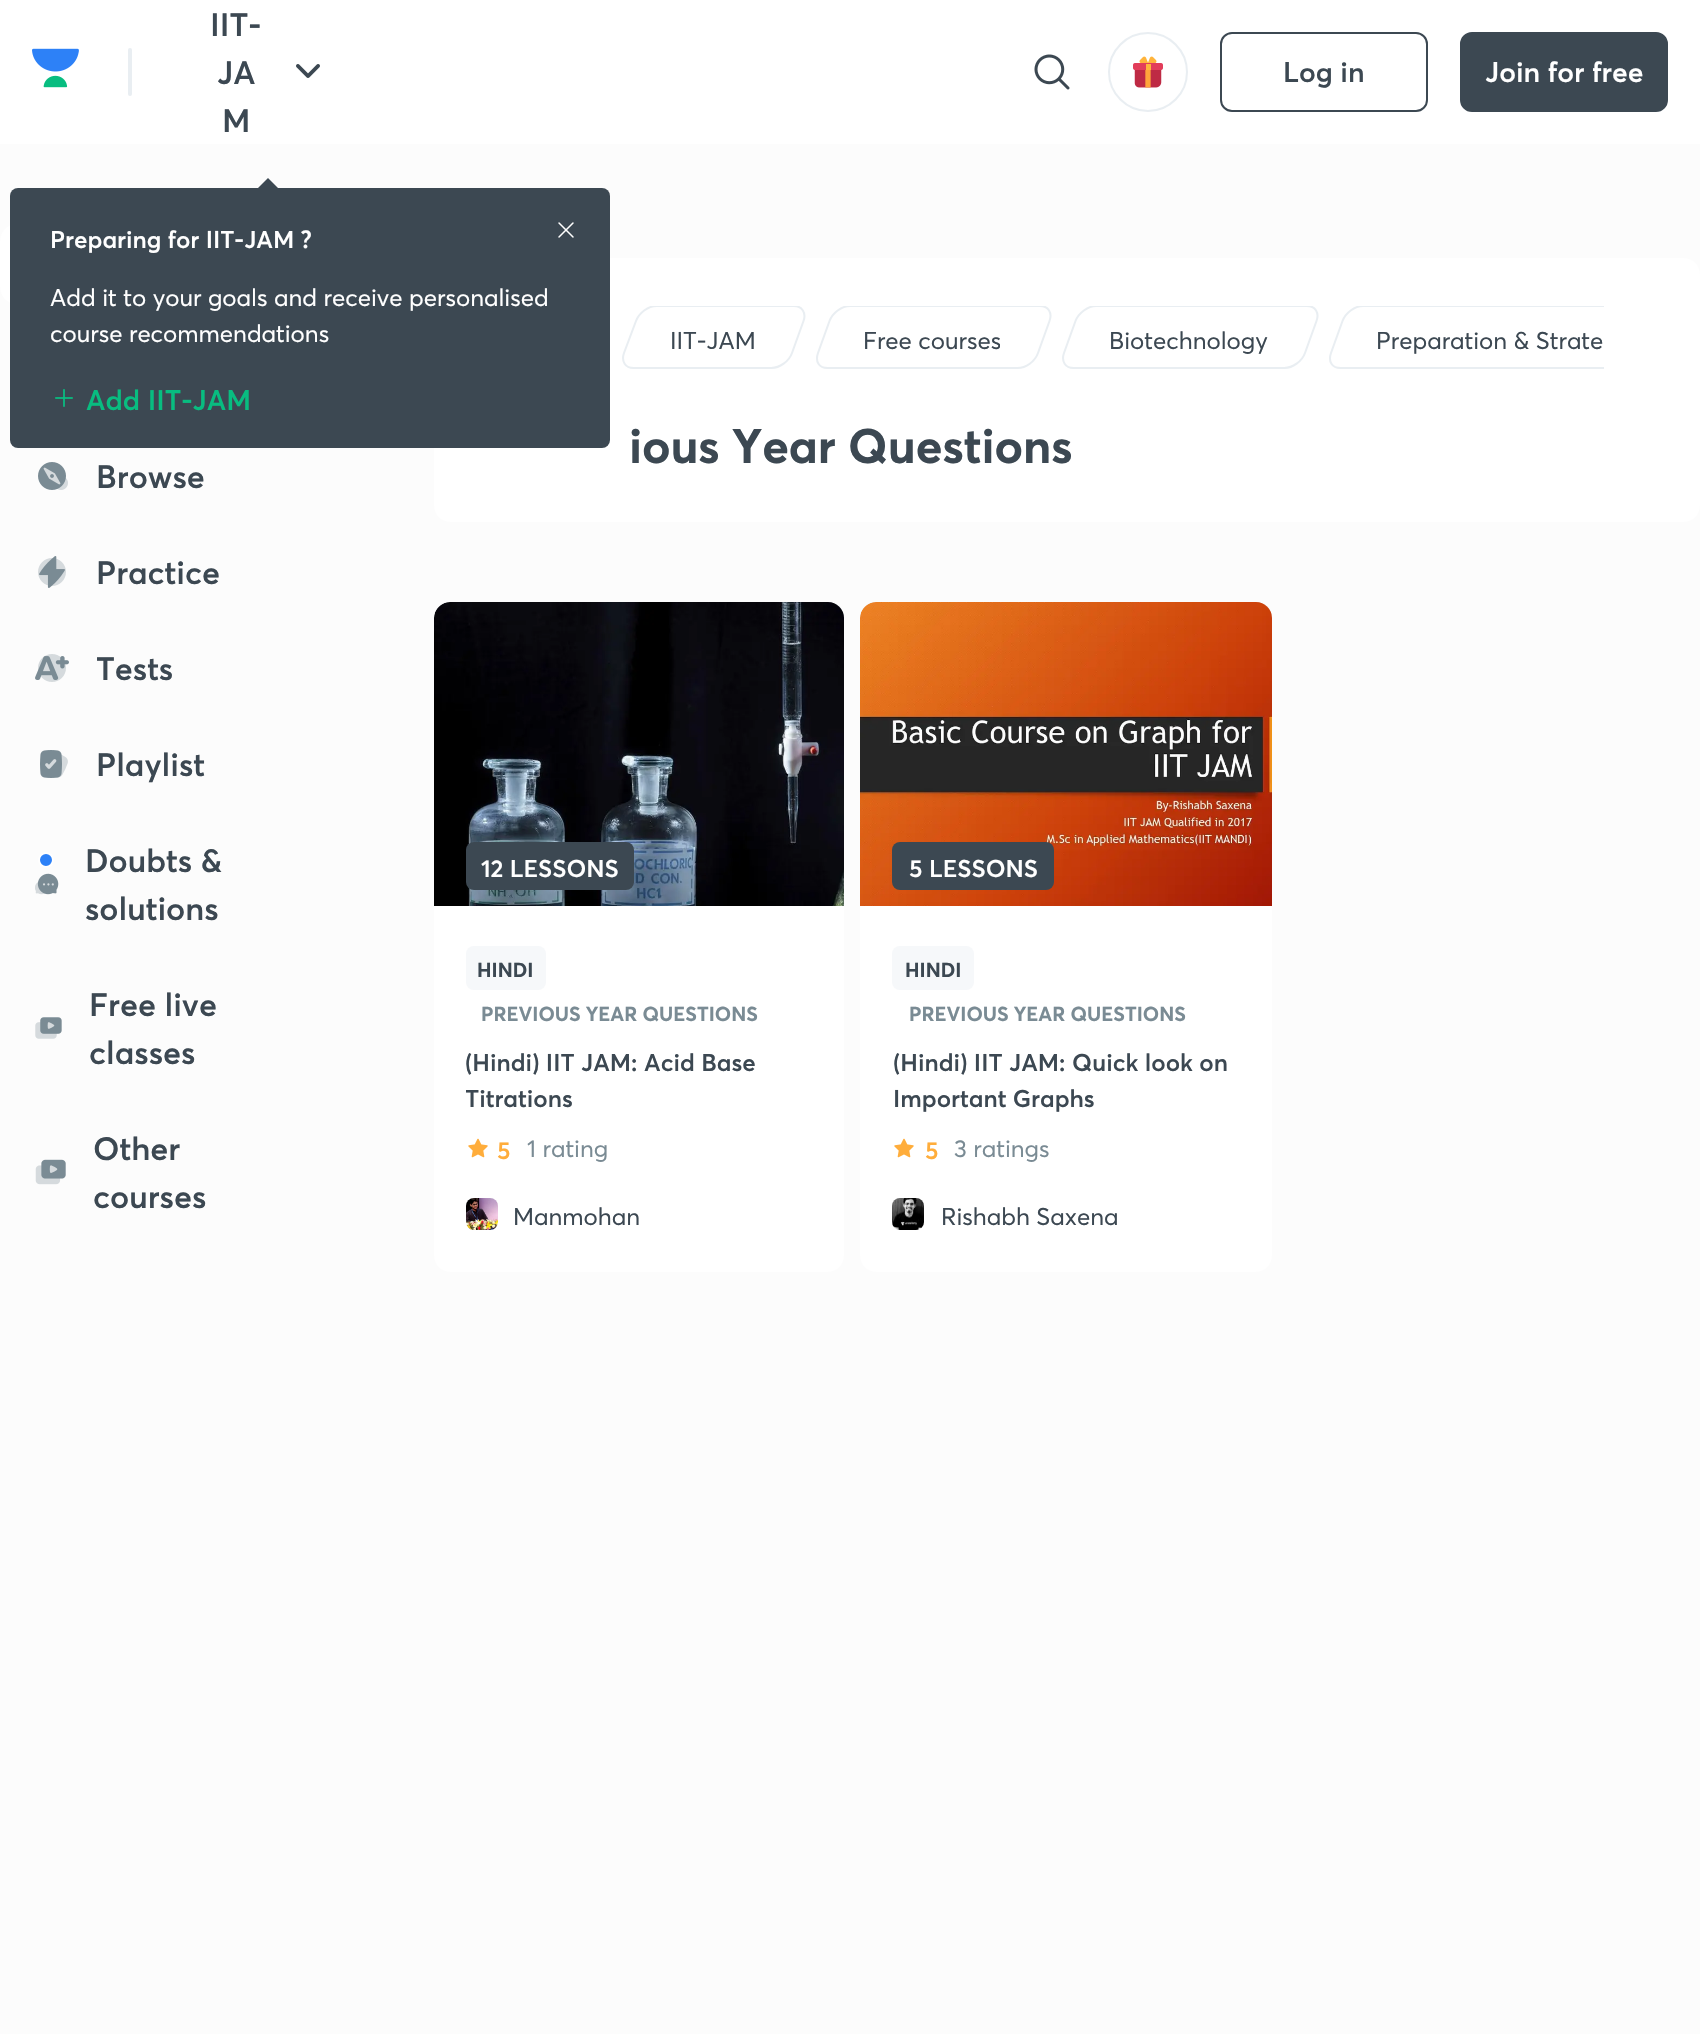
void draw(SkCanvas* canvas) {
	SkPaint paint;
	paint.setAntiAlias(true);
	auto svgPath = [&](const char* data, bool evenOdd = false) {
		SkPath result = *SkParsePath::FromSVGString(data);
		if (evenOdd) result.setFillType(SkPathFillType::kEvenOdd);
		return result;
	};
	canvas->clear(0xfffcfcfc);
	paint.setColor(0xffffffff);
	canvas->drawRect(SkRect::MakeXYWH(0, 0, 1700, 144), paint);
	canvas->drawImageRect(SkImages::DeferredFromEncodedData(SkData::MakeFromFileName("img1.png")), SkRect::MakeXYWH(32, 48, 47, 40), SkSamplingOptions());
	paint.setColor(0xffe9eef2);
	canvas->drawRoundRect(SkRect::MakeXYWH(128, 48, 4, 48), 2, 2, paint);
	SkFont f1(fontMgr->matchFamilyStyle("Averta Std", SkFontStyle(600, SkFontStyle::kNormal_Width, SkFontStyle::kUpright_Slant)), 32);
	f1.setSubpixel(true);
	paint.setColor(0xff3c4852);
	canvas->drawString("IIT-", 210, 36, f1, paint);
	canvas->drawString("JA", 217, 84, f1, paint);
	canvas->drawImageRect(SkImages::DeferredFromEncodedData(SkData::MakeFromFileName("img2.png")), SkRect::MakeXYWH(296, 64, 24, 14), SkSamplingOptions());
	canvas->drawString("M", 222, 132, f1, paint);
	canvas->drawImageRect(SkImages::DeferredFromEncodedData(SkData::MakeFromFileName("img3.png")), SkRect::MakeXYWH(1034, 54, 36, 36), SkSamplingOptions());
	paint.setStroke(true);
	paint.setStrokeWidth(2);
	paint.setColor(0xffe9eef2);
	canvas->drawCircle(1148, 72, 39, paint);
	canvas->drawImageRect(SkImages::DeferredFromEncodedData(SkData::MakeFromFileName("img4.png")), SkRect::MakeXYWH(1133, 56, 30, 32), SkSamplingOptions());
	paint.setColor(0xff3c4852);
	canvas->drawRoundRect(SkRect::MakeXYWH(1221, 33, 206, 78), 11, 11, paint);
	SkFont f2(fontMgr->matchFamilyStyle("Averta Std", SkFontStyle(600, SkFontStyle::kNormal_Width, SkFontStyle::kUpright_Slant)), 28);
	f2.setSubpixel(true);
	paint.setStroke(false);
	canvas->drawString("Log in", 1283, 82, f2, paint);
	canvas->drawRoundRect(SkRect::MakeXYWH(1461, 33, 206, 78), 11, 11, paint);
	paint.setStroke(true);
	canvas->drawRoundRect(SkRect::MakeXYWH(1461, 33, 206, 78), 11, 11, paint);
	paint.setStroke(false);
	paint.setColor(0xffffffff);
	canvas->drawString("Join for free", 1485, 82, f2, paint);
	canvas->drawPath(svgPath("M16 224H306C315 224 322 232 322 241V287C322 296 315 304 306 304H16C7 304 0 296 0 287V241C0 232 7 224 16 224Z"), paint);
	canvas->drawImageRect(SkImages::DeferredFromEncodedData(SkData::MakeFromFileName("img5.png")), SkRect::MakeXYWH(38, 462, 30, 28), SkSamplingOptions());
	paint.setColor(0xff3c4852);
	canvas->drawString("Browse", 96, 488, f1, paint);
	canvas->drawImageRect(SkImages::DeferredFromEncodedData(SkData::MakeFromFileName("img6.png")), SkRect::MakeXYWH(38, 556, 28, 32), SkSamplingOptions());
	canvas->drawString("Practice", 96, 584, f1, paint);
	canvas->drawImageRect(SkImages::DeferredFromEncodedData(SkData::MakeFromFileName("img7.png")), SkRect::MakeXYWH(35, 654, 34, 28), SkSamplingOptions());
	canvas->drawString("Tests", 96, 680, f1, paint);
	canvas->drawImageRect(SkImages::DeferredFromEncodedData(SkData::MakeFromFileName("img8.png")), SkRect::MakeXYWH(40, 750, 28, 28), SkSamplingOptions());
	canvas->drawString("Playlist", 96, 776, f1, paint);
	paint.setColor(0xff2d81f7);
	canvas->drawCircle(46, 860, 7, paint);
	paint.setStroke(true);
	paint.setColor(0xffffffff);
	canvas->drawCircle(46, 860, 7, paint);
	paint.setStroke(false);
	paint.setColor(0xff3c4852);
	canvas->drawString("Doubts &", 85, 872, f1, paint);
	canvas->drawImageRect(SkImages::DeferredFromEncodedData(SkData::MakeFromFileName("img9.png")), SkRect::MakeXYWH(35, 873, 24, 22), SkSamplingOptions());
	canvas->drawString("solutions", 85, 920, f1, paint);
	canvas->drawString("Free live", 89, 1016, f1, paint);
	canvas->drawImageRect(SkImages::DeferredFromEncodedData(SkData::MakeFromFileName("img10.png")), SkRect::MakeXYWH(35, 1017, 27, 22), SkSamplingOptions());
	canvas->drawString("classes", 89, 1064, f1, paint);
	canvas->drawString("Other", 93, 1160, f1, paint);
	canvas->drawImageRect(SkImages::DeferredFromEncodedData(SkData::MakeFromFileName("img11.png")), SkRect::MakeXYWH(35, 1159, 31, 26), SkSamplingOptions());
	canvas->drawString("courses", 93, 1208, f1, paint);
	paint.setColor(0xffffffff);
	canvas->drawRoundRect(SkRect::MakeXYWH(434, 258, 1266, 264), 16, 16, paint);
	canvas->save();
	canvas->clipRect(SkRect::MakeXYWH(530, 306, 1074, 64));
	paint.setStroke(true);
	paint.setColor(0xffe9eef2);
	canvas->drawPath(svgPath("M656.5 306H794C802 306 806.5 313 803.5 321L792 353C789 361.5 779.5 368 771.5 368H633.5C625.5 368 621 361.5 624 353L636 321C639 313 648 306 656.5 306Z"), paint);
	canvas->restore();
	SkFont f3(fontMgr->matchFamilyStyle("Averta Std", SkFontStyle::Normal()), 24);
	f3.setSubpixel(true);
	paint.setStroke(false);
	paint.setColor(0xff3c4852);
	canvas->drawString("IIT-JAM", 670, 349, f3, paint);
	canvas->save();
	canvas->clipRect(SkRect::MakeXYWH(530, 306, 1074, 64));
	paint.setStroke(true);
	paint.setColor(0xffe9eef2);
	canvas->drawPath(svgPath("M850 306H1040C1048.5 306 1052.5 313 1049.5 321L1038 353C1035 361.5 1026 368 1017.5 368H827.5C819 368 815 361.5 818 353L829.5 321C832.5 313 841.5 306 850 306Z"), paint);
	canvas->restore();
	canvas->save();
	canvas->clipRect(SkRect::MakeXYWH(862, 324, 138, 36));
	paint.setStroke(false);
	paint.setColor(0xff3c4852);
	canvas->drawString("Free courses", 863, 349, f3, paint);
	canvas->restore();
	canvas->save();
	canvas->clipRect(SkRect::MakeXYWH(530, 306, 1074, 64));
	paint.setStroke(true);
	paint.setColor(0xffe9eef2);
	canvas->drawPath(svgPath("M1096 306H1307C1315.5 306 1319.5 313 1316.5 321L1305 353C1302 361.5 1292.5 368 1284.5 368H1073.5C1065.5 368 1061 361.5 1064 353L1075.5 321C1078.5 313 1088 306 1096 306Z"), paint);
	canvas->restore();
	paint.setStroke(false);
	paint.setColor(0xff3c4852);
	canvas->drawString("Biotechnology", 1109, 349, f3, paint);
	canvas->save();
	canvas->clipRect(SkRect::MakeXYWH(530, 306, 1074, 64));
	paint.setStroke(true);
	paint.setColor(0xffe9eef2);
	canvas->drawPath(svgPath("M1363 306H1669.5C1677.5 306 1682 313 1679 321L1667 353C1664 361.5 1655 368 1646.5 368H1340.5C1332 368 1328 361.5 1331 353L1342.5 321C1345.5 313 1354.5 306 1363 306Z"), paint);
	canvas->restore();
	paint.setStroke(false);
	paint.setColor(0xff3c4852);
	canvas->drawString("Preparation & Strate", 1376, 349, f3, paint);
	SkFont f4(fontMgr->matchFamilyStyle("Averta Std", SkFontStyle::Bold()), 48);
	f4.setSubpixel(true);
	canvas->drawString("ious Year Questions", 629, 463, f4, paint);
	paint.setColor(0xffffffff);
	canvas->drawRoundRect(SkRect::MakeXYWH(434, 602, 410, 670), 16, 16, paint);
	paint.setColor(0xffe9eef2);
	canvas->drawPath(svgPath("M450 602H828C837 602 844 609 844 618V906H434V618C434 609 441 602 450 602Z"), paint);
	canvas->drawImageRect(SkImages::DeferredFromEncodedData(SkData::MakeFromFileName("img12.png")), SkRect::MakeXYWH(434, 602, 410, 304), SkSamplingOptions());
	paint.setColor(0xff3c4852);
	canvas->drawRoundRect(SkRect::MakeXYWH(466, 842, 168, 48), 8, 8, paint);
	SkFont f5(fontMgr->matchFamilyStyle("Averta Std", SkFontStyle(600, SkFontStyle::kNormal_Width, SkFontStyle::kUpright_Slant)), 24);
	f5.setSubpixel(true);
	paint.setColor(0xffffffff);
	canvas->drawString("12 LESSONS", 481, 877, f5, paint);
	paint.setColor(0xfff6f8fa);
	canvas->drawRoundRect(SkRect::MakeXYWH(466, 946, 80, 44), 8, 8, paint);
	SkFont f6(fontMgr->matchFamilyStyle("Averta Std", SkFontStyle::Bold()), 20);
	f6.setSubpixel(true);
	paint.setColor(0xff3c4852);
	canvas->drawString("HINDI", 477, 977, f6, paint);
	paint.setColor(0xff7a8b94);
	canvas->drawString("PREVIOUS YEAR QUESTIONS", 481, 1021, f6, paint);
	paint.setColor(0xff3c4852);
	canvas->drawString("(Hindi) IIT JAM: Acid Base", 465, 1071, f5, paint);
	canvas->save();
	canvas->clipRect(SkRect::MakeXYWH(466, 1042, 346, 72));
	canvas->drawString("Titrations", 465, 1107, f5, paint);
	canvas->restore();
	canvas->drawImageRect(SkImages::DeferredFromEncodedData(SkData::MakeFromFileName("img13.png")), SkRect::MakeXYWH(468, 1138, 20, 20), SkSamplingOptions());
	paint.setColor(0xffffad3b);
	canvas->drawString("5", 497, 1159, f5, paint);
	paint.setColor(0xff7a8b94);
	canvas->drawString("1 rating", 527, 1157, f3, paint);
	canvas->drawImageRect(SkImages::DeferredFromEncodedData(SkData::MakeFromFileName("img14.png")), SkRect::MakeXYWH(466, 1198, 32, 32), SkSamplingOptions());
	paint.setColor(0xff3c4852);
	canvas->drawString("Manmohan", 513, 1225, f3, paint);
	paint.setColor(0xffffffff);
	canvas->drawRoundRect(SkRect::MakeXYWH(860, 602, 412, 670), 16, 16, paint);
	paint.setColor(0xffe9eef2);
	canvas->drawPath(svgPath("M876 602H1256C1265 602 1272 609 1272 618V906H860V618C860 609 867 602 876 602Z"), paint);
	canvas->drawImageRect(SkImages::DeferredFromEncodedData(SkData::MakeFromFileName("img15.png")), SkRect::MakeXYWH(860, 602, 412, 304), SkSamplingOptions());
	paint.setColor(0xff3c4852);
	canvas->drawRoundRect(SkRect::MakeXYWH(892, 842, 162, 48), 8, 8, paint);
	paint.setColor(0xffffffff);
	canvas->drawString("5 LESSONS", 909, 877, f5, paint);
	paint.setColor(0xfff6f8fa);
	canvas->drawRoundRect(SkRect::MakeXYWH(892, 946, 82, 44), 8, 8, paint);
	paint.setColor(0xff3c4852);
	canvas->drawString("HINDI", 905, 977, f6, paint);
	paint.setColor(0xff7a8b94);
	canvas->drawString("PREVIOUS YEAR QUESTIONS", 909, 1021, f6, paint);
	paint.setColor(0xff3c4852);
	canvas->drawString("(Hindi) IIT JAM: Quick look on", 893, 1071, f5, paint);
	canvas->drawString("Important Graphs", 893, 1107, f5, paint);
	canvas->drawImageRect(SkImages::DeferredFromEncodedData(SkData::MakeFromFileName("img13.png")), SkRect::MakeXYWH(894, 1138, 20, 20), SkSamplingOptions());
	paint.setColor(0xffffad3b);
	canvas->drawString("5", 925, 1159, f5, paint);
	paint.setColor(0xff7a8b94);
	canvas->drawString("3 ratings", 954, 1157, f3, paint);
	canvas->drawImageRect(SkImages::DeferredFromEncodedData(SkData::MakeFromFileName("img16.png")), SkRect::MakeXYWH(892, 1198, 32, 32), SkSamplingOptions());
	paint.setColor(0xff3c4852);
	canvas->drawString("Rishabh Saxena", 941, 1225, f3, paint);
	canvas->drawRoundRect(SkRect::MakeXYWH(10, 188, 600, 260), 8, 8, paint);
	canvas->save();
	canvas->clipRect(SkRect::MakeXYWH(258, 174, 20, 14));
	canvas->drawPath(svgPath("M268 178L282 192L272 202L258 188Z"), paint);
	canvas->restore();
	paint.setColor(0xffffffff);
	canvas->drawString("Preparing for IIT-JAM ?", 50, 248, f5, paint);
	canvas->drawImageRect(SkImages::DeferredFromEncodedData(SkData::MakeFromFileName("img17.png")), SkRect::MakeXYWH(558, 222, 16, 16), SkSamplingOptions());
	canvas->drawString("Add it to your goals and receive personalised", 50, 306, f3, paint);
	canvas->drawString("course recommendations", 50, 342, f3, paint);
	canvas->drawImageRect(SkImages::DeferredFromEncodedData(SkData::MakeFromFileName("img18.png")), SkRect::MakeXYWH(55, 389, 18, 18), SkSamplingOptions());
	paint.setColor(0xff08bd80);
	canvas->drawString("Add IIT-JAM", 86, 410, f2, paint);
}
